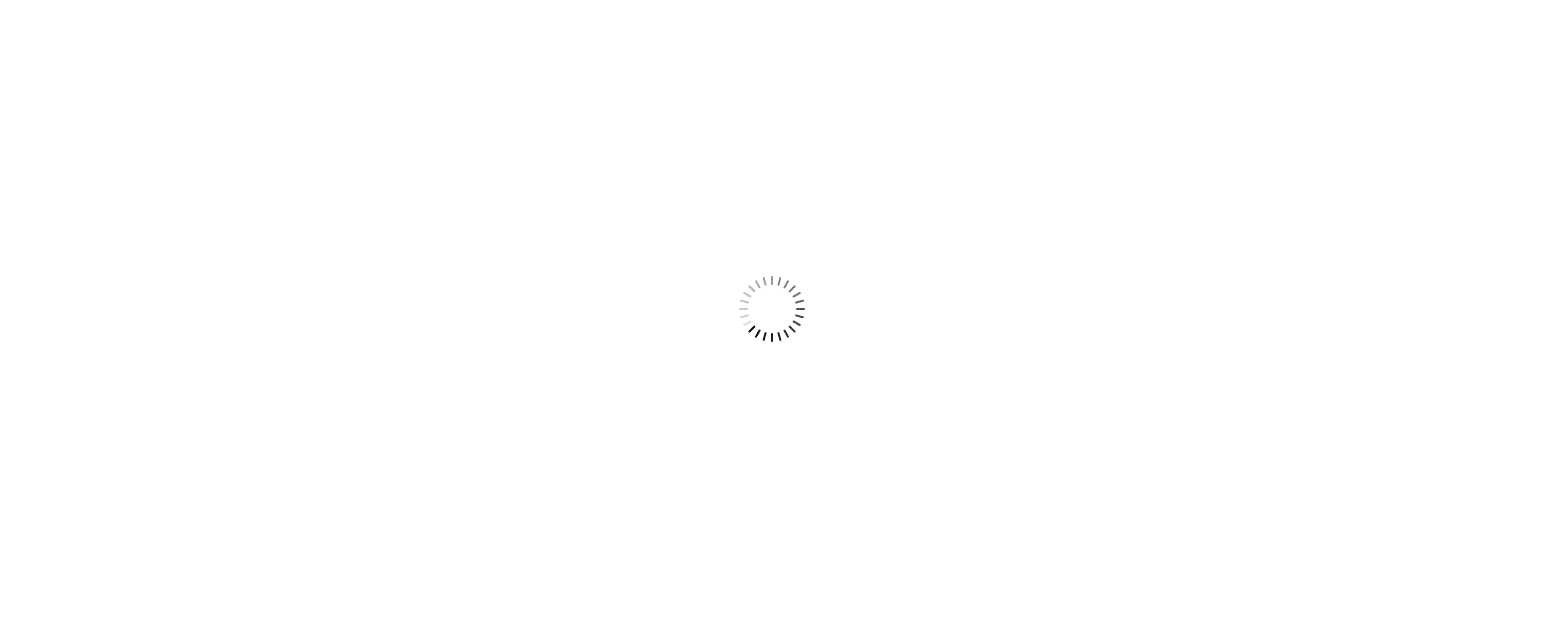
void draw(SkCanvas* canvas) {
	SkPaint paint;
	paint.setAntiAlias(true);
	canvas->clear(0xffffffff);
	canvas->drawImageRect(SkImages::DeferredFromEncodedData(SkData::MakeFromFileName("img1.png")), SkRect::MakeXYWH(739, 276, 66, 66), SkSamplingOptions());
}
